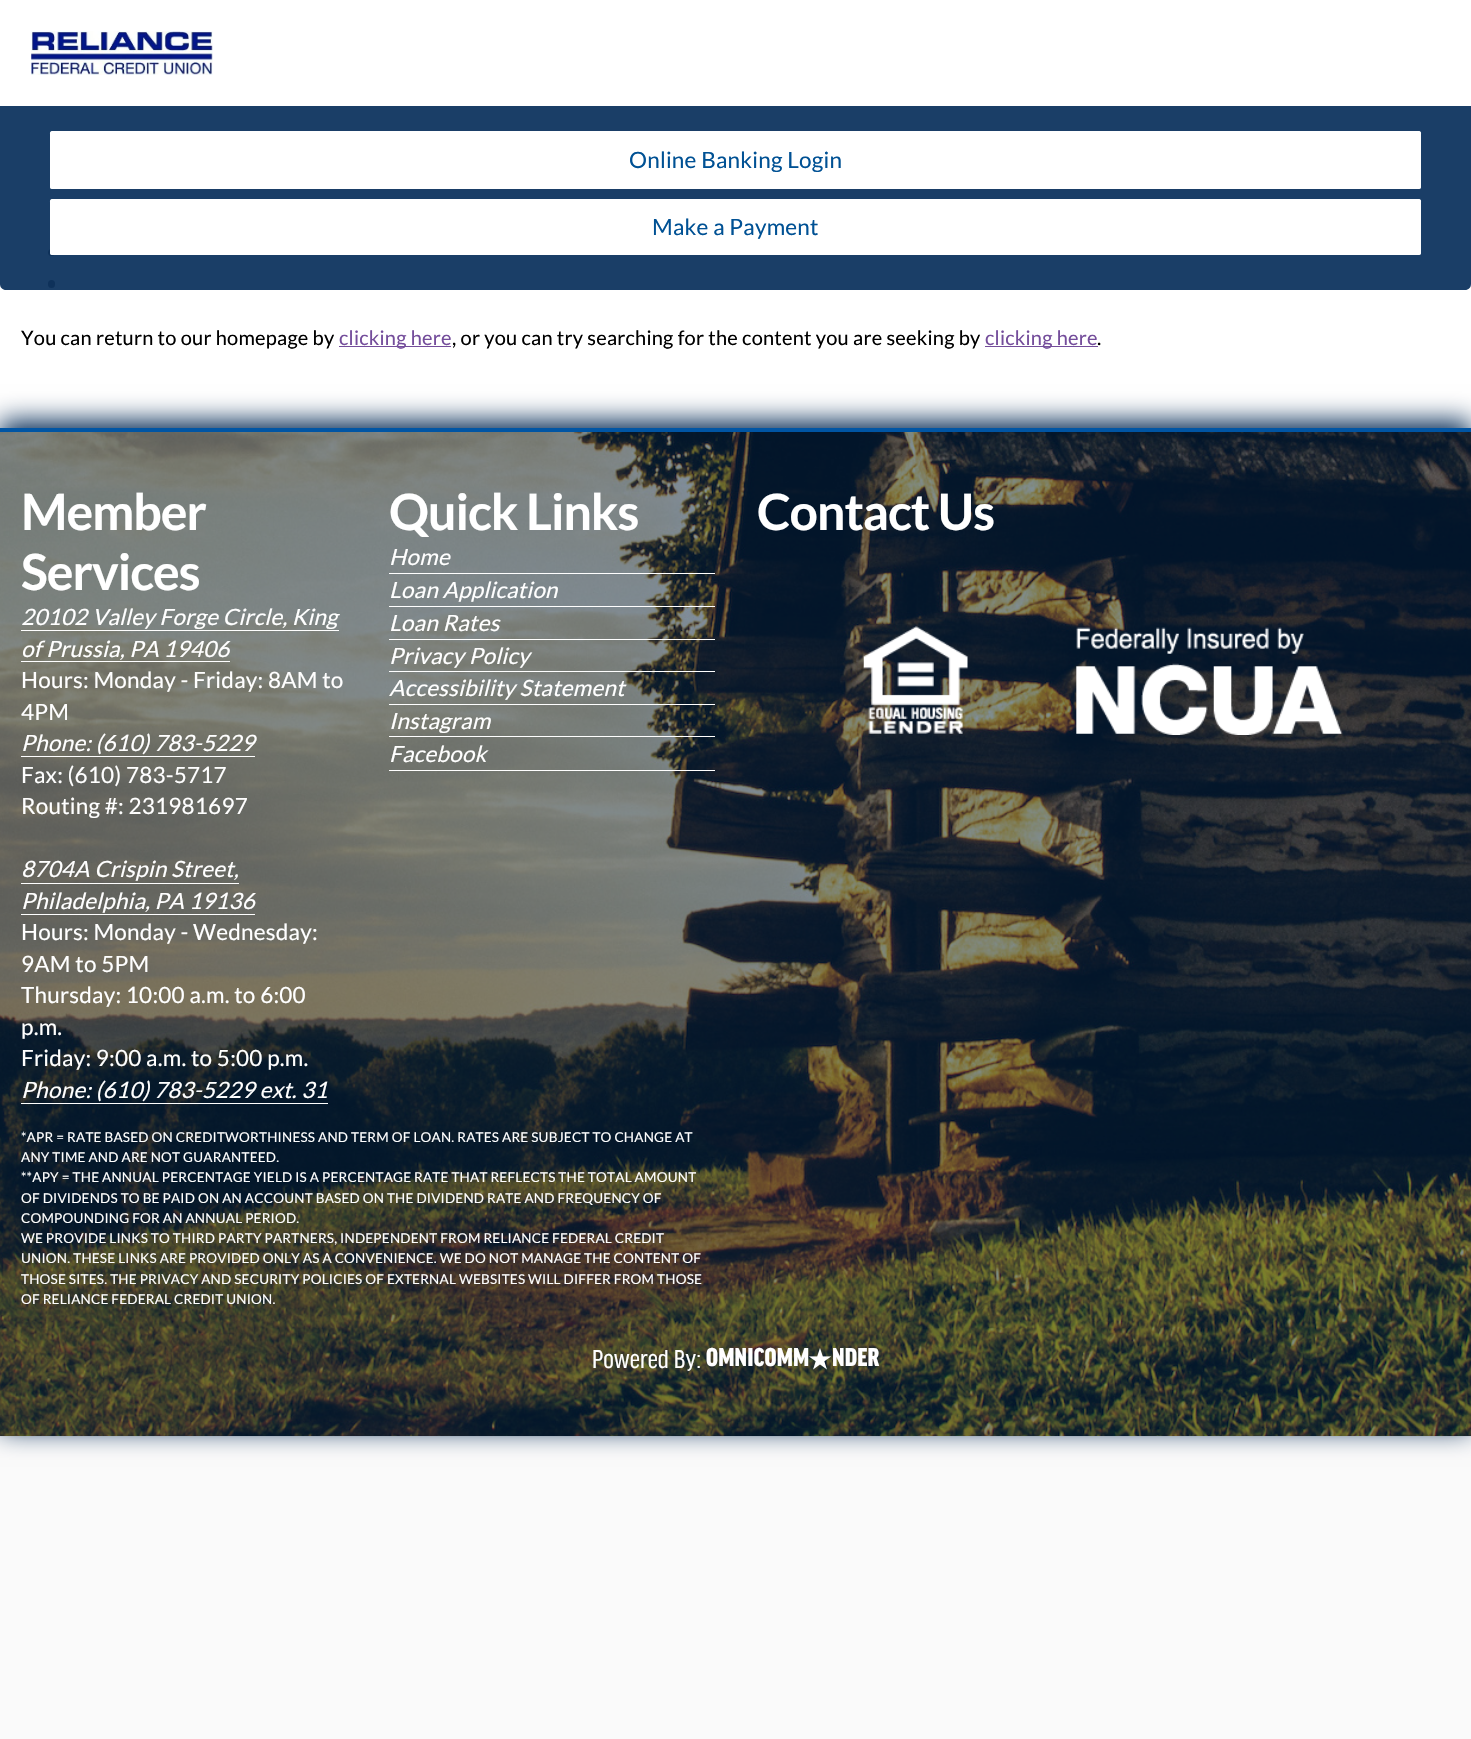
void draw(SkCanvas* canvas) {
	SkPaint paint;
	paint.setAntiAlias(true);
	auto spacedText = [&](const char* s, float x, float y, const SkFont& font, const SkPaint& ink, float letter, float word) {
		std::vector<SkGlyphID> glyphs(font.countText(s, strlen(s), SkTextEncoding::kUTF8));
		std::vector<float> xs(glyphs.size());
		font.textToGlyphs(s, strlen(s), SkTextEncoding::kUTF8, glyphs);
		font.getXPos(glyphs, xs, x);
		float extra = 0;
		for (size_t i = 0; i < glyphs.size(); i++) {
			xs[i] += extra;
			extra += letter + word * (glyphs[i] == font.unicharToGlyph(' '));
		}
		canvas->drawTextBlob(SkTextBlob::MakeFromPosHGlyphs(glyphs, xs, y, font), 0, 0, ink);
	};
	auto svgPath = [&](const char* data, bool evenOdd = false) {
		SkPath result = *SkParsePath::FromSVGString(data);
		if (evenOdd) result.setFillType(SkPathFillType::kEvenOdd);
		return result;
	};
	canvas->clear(0xfffafafa);
	paint.setColor(0xffffffff);
	canvas->drawRect(SkRect::MakeXYWH(0, 0, 1471, 428), paint);
	canvas->drawImageRect(SkImages::DeferredFromEncodedData(SkData::MakeFromFileName("img1.png")), SkRect::MakeXYWH(31, 31, 182, 44), SkSamplingOptions());
	paint.setColor(0xff7e7674);
	canvas->drawCircle(51.5, 252.5, 3.5, paint);
	canvas->drawRoundRect(SkRect::MakeXYWH(48, 280, 7, 8), 3.5, 3.5, paint);
	paint.setColor(0xe6012956);
	canvas->drawPath(svgPath("M0 106H1471V284C1471 287.5 1468.5 290 1465 290H6C2.5 290 0 287.5 0 284Z"), paint);
	paint.setColor(0xffffffff);
	canvas->drawRoundRect(SkRect::MakeXYWH(50, 131, 1371, 58), 2.5, 2.5, paint);
	{
		const SkColor colors[] = {0xffffffff, 0x00ffffff, 0xffffffff};
		const float stops[] = {0, 0.5, 1};
		const SkPoint ends[] = {{378, 517}, {1093, -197}};
		paint.setShader(SkGradientShader::MakeLinear(ends, colors, stops, 3, SkTileMode::kClamp));
		paint.setAlpha(255);
	}
	canvas->drawRoundRect(SkRect::MakeXYWH(50, 131, 1371, 58), 2.5, 2.5, paint);
	SkFont f1(fontMgr->matchFamilyStyle("Lato", SkFontStyle::Normal()), 22.5);
	f1.setSubpixel(true);
	paint.setShader(nullptr);
	paint.setColor(0xff005194);
	spacedText("Online Banking Login", 629, 168, f1, paint, 0.22, 0);
	paint.setColor(0xffffffff);
	canvas->drawRoundRect(SkRect::MakeXYWH(50, 199, 1371, 56), 2.5, 2.5, paint);
	{
		const SkColor colors[] = {0xffffffff, 0x00ffffff, 0xffffffff};
		const float stops[] = {0, 0.5, 1};
		const SkPoint ends[] = {{379, 584}, {1093, -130}};
		paint.setShader(SkGradientShader::MakeLinear(ends, colors, stops, 3, SkTileMode::kClamp));
		paint.setAlpha(255);
	}
	canvas->drawRoundRect(SkRect::MakeXYWH(50, 199, 1371, 56), 2.5, 2.5, paint);
	paint.setShader(nullptr);
	paint.setColor(0xff005194);
	spacedText("Make a Payment", 652, 235, f1, paint, 0.22, 0);
	SkFont f2(fontMgr->matchFamilyStyle("Lato", SkFontStyle::Normal()), 20);
	f2.setSubpixel(true);
	paint.setColor(0xff000000);
	spacedText("You can return to our homepage by", 21, 345, f2, paint, 0.22, 0);
	paint.setColor(0xff744d9b);
	canvas->drawRect(SkRect::MakeXYWH(339, 346, 112, 1), paint);
	spacedText("clicking here", 339, 345, f2, paint, 0.22, 0);
	paint.setColor(0xff000000);
	spacedText(", or you can try searching for the content you are seeking by", 452, 345, f2, paint, 0.22, 0);
	paint.setColor(0xff744d9b);
	canvas->drawRect(SkRect::MakeXYWH(985, 346, 113, 1), paint);
	spacedText("clicking here", 985, 345, f2, paint, 0.22, 0);
	paint.setColor(0xff000000);
	spacedText(".", 1097, 345, f2, paint, 0.22, 0);
	paint.setColor(0xff012854);
	canvas->drawRect(SkRect::MakeXYWH(0, 432, 1471, 1004), paint);
	canvas->drawImageRect(SkImages::DeferredFromEncodedData(SkData::MakeFromFileName("img2.png")), SkRect::MakeXYWH(0, 432, 1471, 1005), SkSamplingOptions());
	canvas->save();
	canvas->clipPath(svgPath("M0 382H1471V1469H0ZM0 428H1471V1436H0Z", true), true);
	paint.setMaskFilter(SkMaskFilter::MakeBlur(kNormal_SkBlurStyle, 12.5));
	canvas->drawRect(SkRect::MakeXYWH(0, 421, 1471, 1009), paint);
	paint.setMaskFilter(nullptr);
	canvas->restore();
	paint.setColor(0xff0055a4);
	canvas->drawRect(SkRect::MakeXYWH(0, 428, 1471, 4), paint);
	SkFont f3(fontMgr->matchFamilyStyle("Lato", SkFontStyle::Bold()), 50);
	f3.setSubpixel(true);
	paint.setColor(0xffffffff);
	spacedText("Member", 21, 530, f3, paint, -1, 0);
	spacedText("Services", 21, 590, f3, paint, -1, 0);
	SkFont f4(fontMgr->matchFamilyStyle("Lato", SkFontStyle::Italic()), 22.5);
	f4.setSubpixel(true);
	spacedText("20102 Valley Forge Circle, King", 21, 625, f4, paint, 0.22, 0);
	canvas->drawRect(SkRect::MakeXYWH(21, 630, 318, 1), paint);
	spacedText("of Prussia, PA 19406", 21, 657, f4, paint, 0.22, 0);
	canvas->drawRect(SkRect::MakeXYWH(21, 661, 209, 1), paint);
	spacedText("Hours: Monday - Friday: 8AM to", 21, 688, f1, paint, 0.22, 0);
	spacedText("4PM", 21, 720, f1, paint, 0.22, 0);
	spacedText("Phone: (610) 783-5229", 21, 751, f4, paint, 0.22, 0);
	canvas->drawRect(SkRect::MakeXYWH(21, 756, 234, 1), paint);
	spacedText("Fax: (610) 783-5717", 21, 783, f1, paint, 0.22, 0);
	spacedText("Routing #: 231981697", 21, 814, f1, paint, 0.22, 0);
	spacedText("8704A Crispin Street,", 21, 877, f4, paint, 0.22, 0);
	canvas->drawRect(SkRect::MakeXYWH(21, 883, 218, 1), paint);
	spacedText("Philadelphia, PA 19136", 21, 909, f4, paint, 0.22, 0);
	canvas->drawRect(SkRect::MakeXYWH(21, 914, 234, 1), paint);
	spacedText("Hours: Monday - Wednesday:", 21, 940, f1, paint, 0.22, 0);
	spacedText("9AM to 5PM", 21, 972, f1, paint, 0.22, 0);
	spacedText("Thursday: 10:00 a.m. to 6:00", 21, 1003, f1, paint, 0.22, 0);
	spacedText("p.m.", 21, 1035, f1, paint, 0.22, 0);
	spacedText("Friday: 9:00 a.m. to 5:00 p.m.", 21, 1066, f1, paint, 0.22, 0);
	spacedText("Phone: (610) 783-5229 ext. 31", 21, 1098, f4, paint, 0.22, 0);
	canvas->drawRect(SkRect::MakeXYWH(21, 1103, 307, 1), paint);
	spacedText("Quick Links", 389, 530, f3, paint, -1, 0);
	canvas->drawRect(SkRect::MakeXYWH(389, 573, 326, 1), paint);
	spacedText("Home", 389, 565, f4, paint, 0.22, 0);
	canvas->drawRect(SkRect::MakeXYWH(389, 606, 326, 1), paint);
	spacedText("Loan Application", 389, 598, f4, paint, 0.22, 0);
	canvas->drawRect(SkRect::MakeXYWH(389, 639, 326, 1), paint);
	spacedText("Loan Rates", 389, 631, f4, paint, 0.22, 0);
	canvas->drawRect(SkRect::MakeXYWH(389, 671, 326, 1), paint);
	spacedText("Privacy Policy", 389, 664, f4, paint, 0.22, 0);
	canvas->drawRect(SkRect::MakeXYWH(389, 704, 326, 1), paint);
	spacedText("Accessibility Statement", 389, 696, f4, paint, 0.22, 0);
	canvas->drawRect(SkRect::MakeXYWH(389, 736, 326, 1), paint);
	spacedText("Instagram", 389, 729, f4, paint, 0.22, 0);
	canvas->drawRect(SkRect::MakeXYWH(389, 770, 326, 1), paint);
	spacedText("Facebook", 389, 762, f4, paint, 0.22, 0);
	SkFont f5(fontMgr->matchFamilyStyle("Lato", SkFontStyle::Normal()), 13.5);
	f5.setSubpixel(true);
	spacedText("*APR = RATE BASED ON CREDITWORTHINESS AND TERM OF LOAN. RATES ARE SUBJECT TO CHANGE AT", 21, 1142, f5, paint, 0.22, 0);
	spacedText("ANY TIME AND ARE NOT GUARANTEED.", 21, 1162, f5, paint, 0.22, 0);
	spacedText("**APY = THE ANNUAL PERCENTAGE YIELD IS A PERCENTAGE RATE THAT REFLECTS THE TOTAL AMOUNT", 21, 1182, f5, paint, 0.22, 0);
	spacedText("OF DIVIDENDS TO BE PAID ON AN ACCOUNT BASED ON THE DIVIDEND RATE AND FREQUENCY OF", 21, 1203, f5, paint, 0.22, 0);
	spacedText("COMPOUNDING FOR AN ANNUAL PERIOD.", 21, 1223, f5, paint, 0.22, 0);
	spacedText("WE PROVIDE LINKS TO THIRD PARTY PARTNERS, INDEPENDENT FROM RELIANCE FEDERAL CREDIT", 21, 1243, f5, paint, 0.22, 0);
	spacedText("UNION. THESE LINKS ARE PROVIDED ONLY AS A CONVENIENCE. WE DO NOT MANAGE THE CONTENT OF", 21, 1263, f5, paint, 0.22, 0);
	spacedText("THOSE SITES. THE PRIVACY AND SECURITY POLICIES OF EXTERNAL WEBSITES WILL DIFFER FROM THOSE", 21, 1284, f5, paint, 0.22, 0);
	spacedText("OF RELIANCE FEDERAL CREDIT UNION.", 21, 1304, f5, paint, 0.22, 0);
	spacedText("Contact Us", 757, 530, f3, paint, -1, 0);
	canvas->drawImageRect(SkImages::DeferredFromEncodedData(SkData::MakeFromFileName("img3.png")), SkRect::MakeXYWH(863, 626, 105, 108), SkSamplingOptions());
	canvas->drawImageRect(SkImages::DeferredFromEncodedData(SkData::MakeFromFileName("img4.png")), SkRect::MakeXYWH(1076, 627, 267, 108), SkSamplingOptions());
	SkFont f6(fontMgr->matchFamilyStyle("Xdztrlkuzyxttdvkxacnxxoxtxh", SkFontStyle(500, SkFontStyle::kNormal_Width, SkFontStyle::kUpright_Slant)), 27.5);
	f6.setSubpixel(true);
	canvas->drawString("Powered By:", 592, 1368, f6, paint);
	SkFont f7(fontMgr->matchFamilyStyle("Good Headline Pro", SkFontStyle(900, SkFontStyle::kNormal_Width, SkFontStyle::kUpright_Slant)), 27.5);
	f7.setSubpixel(true);
	spacedText("OMNICOMM", 706, 1366, f7, paint, 0.22, 0);
	canvas->drawImageRect(SkImages::DeferredFromEncodedData(SkData::MakeFromFileName("img5.png")), SkRect::MakeXYWH(809, 1348, 22, 22), SkSamplingOptions());
	spacedText("NDER", 832, 1366, f7, paint, 0.22, 0);
}
